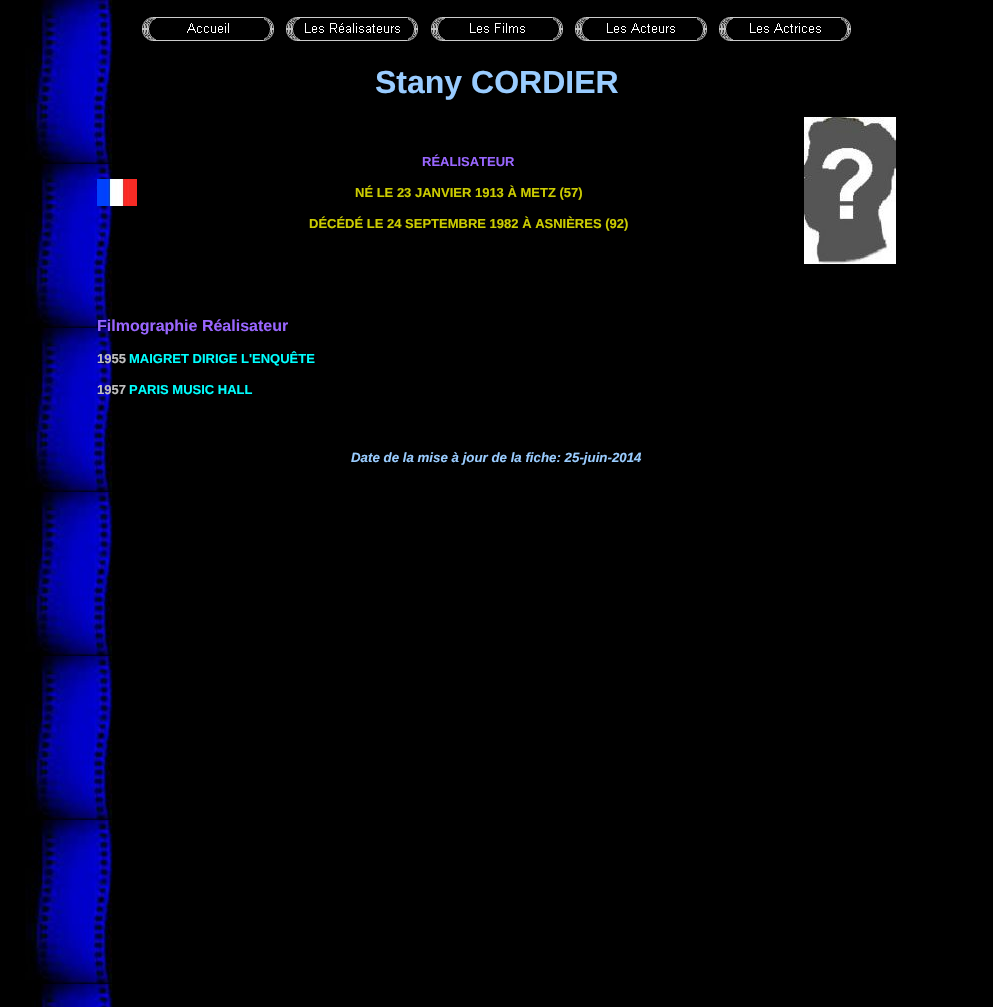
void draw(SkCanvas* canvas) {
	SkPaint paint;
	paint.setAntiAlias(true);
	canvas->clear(0xff000000);
	canvas->drawImageRect(SkImages::DeferredFromEncodedData(SkData::MakeFromFileName("img1.png")), SkRect::MakeXYWH(25, 0, 88, 1007), SkSamplingOptions());
	canvas->drawImageRect(SkImages::DeferredFromEncodedData(SkData::MakeFromFileName("img2.png")), SkRect::MakeXYWH(142, 17, 132, 24), SkSamplingOptions());
	canvas->drawImageRect(SkImages::DeferredFromEncodedData(SkData::MakeFromFileName("img3.png")), SkRect::MakeXYWH(286, 17, 132, 24), SkSamplingOptions());
	canvas->drawImageRect(SkImages::DeferredFromEncodedData(SkData::MakeFromFileName("img4.png")), SkRect::MakeXYWH(431, 17, 132, 24), SkSamplingOptions());
	canvas->drawImageRect(SkImages::DeferredFromEncodedData(SkData::MakeFromFileName("img5.png")), SkRect::MakeXYWH(575, 17, 132, 24), SkSamplingOptions());
	canvas->drawImageRect(SkImages::DeferredFromEncodedData(SkData::MakeFromFileName("img6.png")), SkRect::MakeXYWH(719, 17, 132, 24), SkSamplingOptions());
	SkFont f1(fontMgr->matchFamilyStyle("Liberation Sans", SkFontStyle::Bold()), 32);
	f1.setSubpixel(true);
	paint.setColor(0xff99ccff);
	canvas->drawString("Stany CORDIER", 375, 93, f1, paint);
	canvas->drawImageRect(SkImages::DeferredFromEncodedData(SkData::MakeFromFileName("img7.png")), SkRect::MakeXYWH(97, 179, 40, 27), SkSamplingOptions());
	SkFont f2(fontMgr->matchFamilyStyle("Liberation Sans", SkFontStyle::Bold()), 13);
	f2.setSubpixel(true);
	paint.setColor(0xff9966ff);
	canvas->drawString("RÉALISATEUR", 422, 166, f2, paint);
	paint.setColor(0xffcccc00);
	canvas->drawString("NÉ LE 23 JANVIER 1913 À METZ (57)", 355, 197, f2, paint);
	canvas->drawString("DÉCÉDÉ LE 24 SEPTEMBRE 1982 À ASNIÈRES (92)", 309, 228, f2, paint);
	canvas->drawImageRect(SkImages::DeferredFromEncodedData(SkData::MakeFromFileName("img8.png")), SkRect::MakeXYWH(804, 117, 92, 147), SkSamplingOptions());
	SkFont f3(fontMgr->matchFamilyStyle("Liberation Sans", SkFontStyle::Bold()), 16);
	f3.setSubpixel(true);
	paint.setColor(0xff9966ff);
	canvas->drawString("Filmographie Réalisateur", 97, 331, f3, paint);
	paint.setColor(0xffc0c0c0);
	canvas->drawString("1955", 97, 363, f2, paint);
	paint.setColor(0xff00ffff);
	canvas->drawString("MAIGRET DIRIGE L'ENQUÊTE", 129, 363, f2, paint);
	paint.setColor(0xffc0c0c0);
	canvas->drawString("1957", 97, 394, f2, paint);
	paint.setColor(0xff00ffff);
	canvas->drawString("PARIS MUSIC HALL", 129, 394, f2, paint);
	SkFont f4(fontMgr->matchFamilyStyle("Liberation Sans", SkFontStyle::BoldItalic()), 13.3);
	f4.setSubpixel(true);
	paint.setColor(0xff99ccff);
	canvas->drawString("Date de la mise à jour de la fiche: 25-juin-2014", 351, 462, f4, paint);
}
